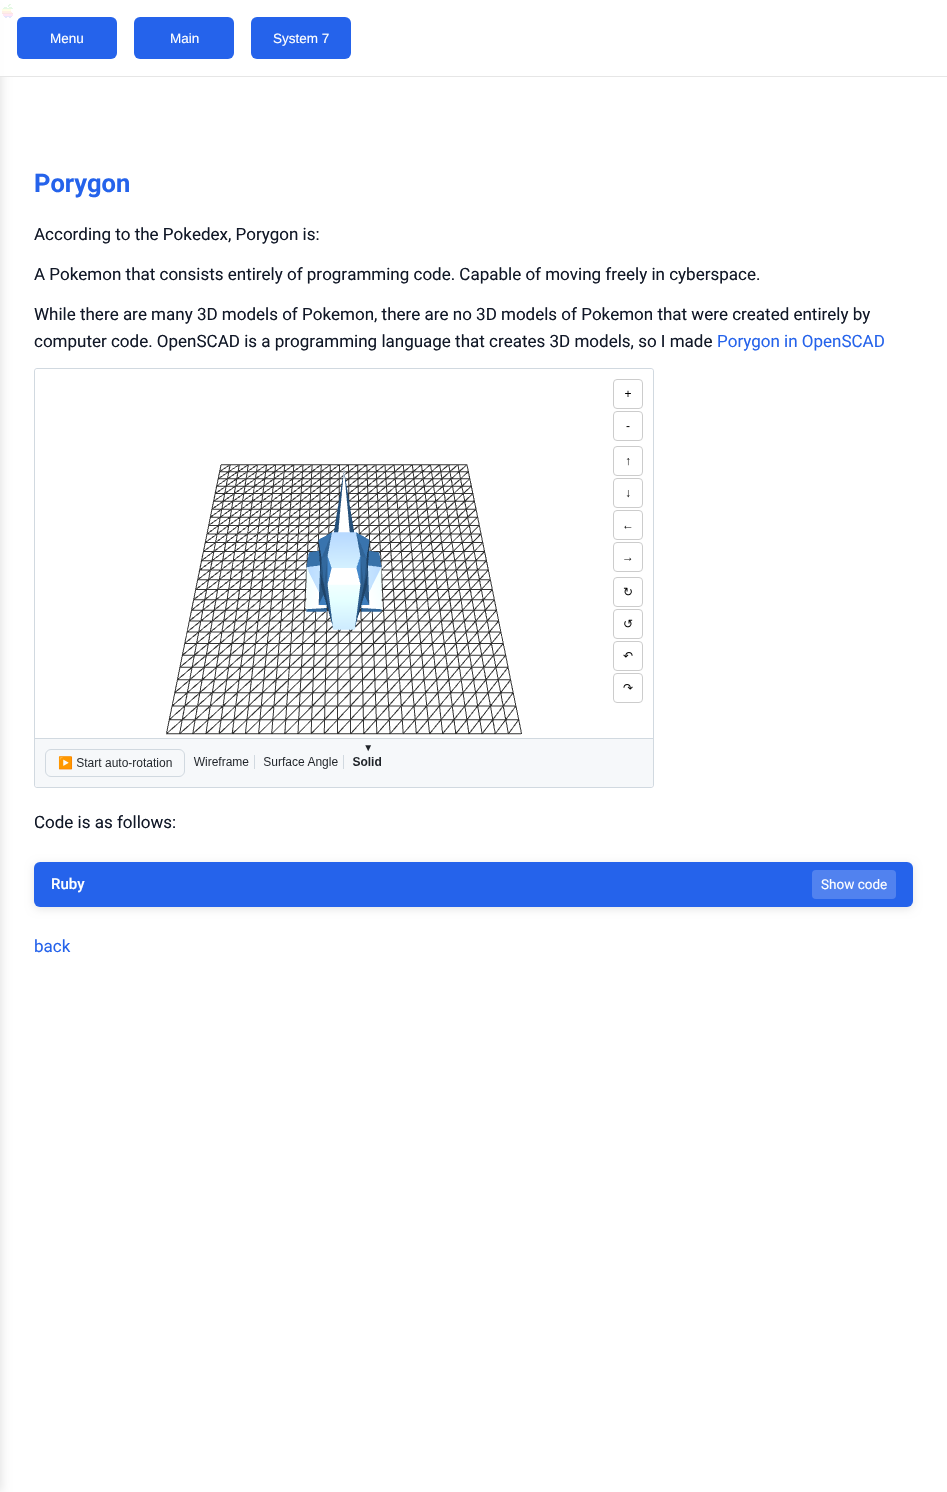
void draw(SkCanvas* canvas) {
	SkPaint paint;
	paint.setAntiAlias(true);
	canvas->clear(0xffffffff);
	canvas->drawImageRect(SkImages::DeferredFromEncodedData(SkData::MakeFromFileName("img1.png")), SkRect::MakeXYWH(2, 4, 11, 14), SkSamplingOptions());
	paint.setColor(0x1a000000);
	paint.setMaskFilter(SkMaskFilter::MakeBlur(kNormal_SkBlurStyle, 5));
	canvas->drawRect(SkRect::MakeXYWH(-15, 0, 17, 1492), paint);
	paint.setMaskFilter(nullptr);
	paint.setColor(0xe6ffffff);
	canvas->drawRect(SkRect::MakeXYWH(0, 0, 13, 76), paint);
	paint.setColor(0xffe6e6e6);
	canvas->drawRect(SkRect::MakeXYWH(0, 76, 947, 1), paint);
	paint.setColor(0xff2563eb);
	canvas->drawRoundRect(SkRect::MakeXYWH(17, 17, 100, 42), 6, 6, paint);
	SkFont f1(fontMgr->matchFamilyStyle("Liberation Sans", SkFontStyle::Normal()), 13.5);
	f1.setSubpixel(true);
	paint.setColor(0xffffffff);
	canvas->drawString("Menu", 50, 43, f1, paint);
	paint.setColor(0xff2563eb);
	canvas->drawRoundRect(SkRect::MakeXYWH(134, 17, 100, 42), 6, 6, paint);
	paint.setColor(0xffffffff);
	canvas->drawString("Main", 170, 43, f1, paint);
	paint.setColor(0xff2563eb);
	canvas->drawRoundRect(SkRect::MakeXYWH(251, 17, 100, 42), 6, 6, paint);
	paint.setColor(0xffffffff);
	canvas->drawString("System 7", 273, 43, f1, paint);
	SkFont f2(fontMgr->matchFamilyStyle("Roboto", SkFontStyle::Bold()), 25.5);
	f2.setSubpixel(true);
	paint.setColor(0xff2563eb);
	canvas->drawString("Porygon", 34, 192, f2, paint);
	SkFont f3(fontMgr->matchFamilyStyle("Roboto", SkFontStyle::Normal()), 17);
	f3.setSubpixel(true);
	paint.setColor(0xff111827);
	canvas->drawString("According to the Pokedex, Porygon is:", 34, 240, f3, paint);
	canvas->drawString("A Pokemon that consists entirely of programming code. Capable of moving freely in cyberspace.", 34, 280, f3, paint);
	canvas->drawString("While there are many 3D models of Pokemon, there are no 3D models of Pokemon that were created entirely by", 34, 320, f3, paint);
	canvas->drawString("computer code. OpenSCAD is a programming language that creates 3D models, so I made", 34, 347, f3, paint);
	paint.setColor(0xff2563eb);
	canvas->drawString("Porygon in OpenSCAD", 717, 347, f3, paint);
	canvas->drawImageRect(SkImages::DeferredFromEncodedData(SkData::MakeFromFileName("img2.png")), SkRect::MakeXYWH(34, 368, 620, 420), SkSamplingOptions());
	paint.setColor(0xff111827);
	canvas->drawString("Code is as follows:", 34, 828, f3, paint);
	paint.setColor(0x1a000000);
	paint.setMaskFilter(SkMaskFilter::MakeBlur(kNormal_SkBlurStyle, 4));
	canvas->drawRoundRect(SkRect::MakeXYWH(34, 864, 879, 45), 6, 6, paint);
	paint.setMaskFilter(nullptr);
	paint.setColor(0xff2563eb);
	canvas->drawRoundRect(SkRect::MakeXYWH(34, 862, 879, 45), 6, 6, paint);
	SkFont f4(fontMgr->matchFamilyStyle("Roboto", SkFontStyle(500, SkFontStyle::kNormal_Width, SkFontStyle::kUpright_Slant)), 15);
	f4.setSubpixel(true);
	paint.setColor(0xffffffff);
	canvas->drawString("Ruby", 51, 889, f4, paint);
	paint.setColor(0xff5182ef);
	canvas->drawRoundRect(SkRect::MakeXYWH(812, 870, 84, 29), 4, 4, paint);
	SkFont f5(fontMgr->matchFamilyStyle("Roboto", SkFontStyle::Normal()), 13.5);
	f5.setSubpixel(true);
	paint.setColor(0xffffffff);
	canvas->drawString("Show code", 821, 889, f5, paint);
	paint.setColor(0xff2563eb);
	canvas->drawString("back", 34, 952, f3, paint);
}
